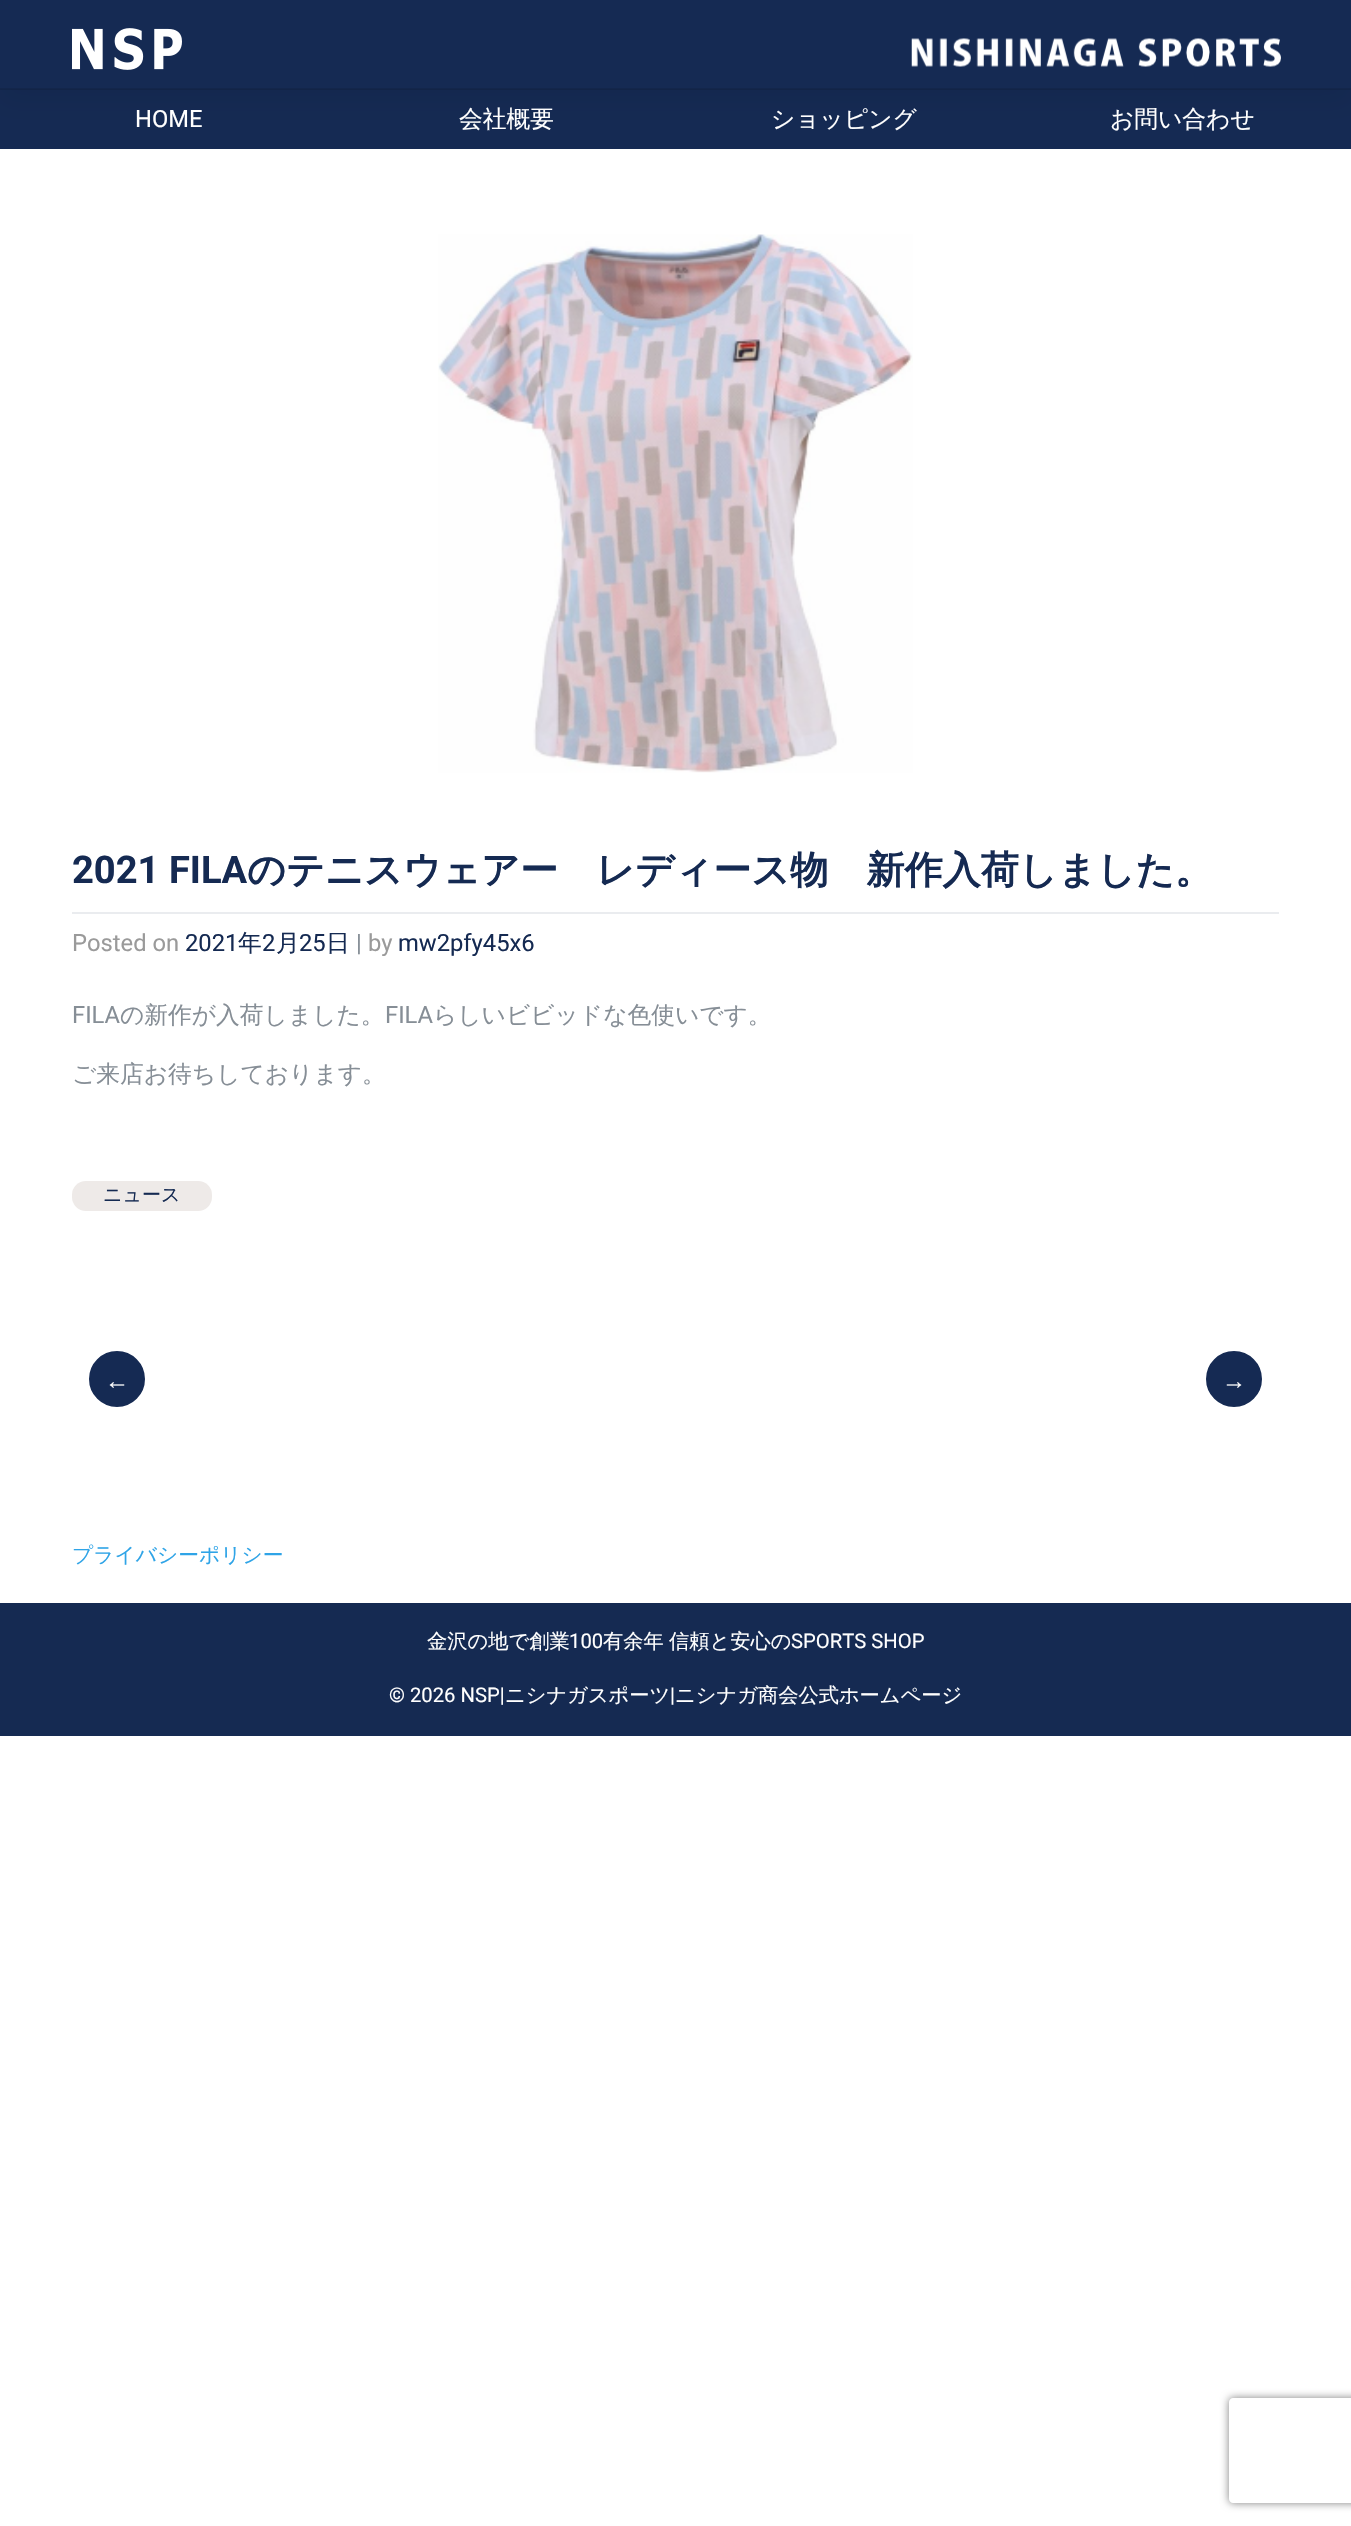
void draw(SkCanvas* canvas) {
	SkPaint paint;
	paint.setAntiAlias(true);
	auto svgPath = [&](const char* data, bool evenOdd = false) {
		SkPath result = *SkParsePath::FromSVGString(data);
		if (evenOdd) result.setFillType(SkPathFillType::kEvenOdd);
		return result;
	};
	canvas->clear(0xffffffff);
	paint.setColor(0xff152a53);
	canvas->drawRect(SkRect::MakeXYWH(0, 89, 1351, 60), paint);
	paint.setColor(0x0d000000);
	paint.setMaskFilter(SkMaskFilter::MakeBlur(kNormal_SkBlurStyle, 12));
	canvas->drawRect(SkRect::MakeXYWH(0, 12, 1351, 90), paint);
	paint.setMaskFilter(nullptr);
	paint.setColor(0xff152a53);
	canvas->drawRect(SkRect::MakeXYWH(0, 0, 1351, 89), paint);
	paint.setColor(0x1a000000);
	canvas->drawRect(SkRect::MakeXYWH(0, 88, 1351, 2), paint);
	canvas->drawImageRect(SkImages::DeferredFromEncodedData(SkData::MakeFromFileName("img1.png")), SkRect::MakeXYWH(72, 28, 110, 42), SkSamplingOptions());
	canvas->drawImageRect(SkImages::DeferredFromEncodedData(SkData::MakeFromFileName("img2.png")), SkRect::MakeXYWH(911, 38, 370, 29), SkSamplingOptions());
	SkFont f1(fontMgr->matchFamilyStyle("Roboto", SkFontStyle::Normal()), 23.75);
	f1.setSubpixel(true);
	paint.setColor(0xffffffff);
	canvas->drawString("HOME", 135, 127, f1, paint);
	SkFont f2(fontMgr->matchFamilyStyle("WenQuanYi Zen Hei", SkFontStyle(500, SkFontStyle::kNormal_Width, SkFontStyle::kUpright_Slant)), 23.75);
	f2.setSubpixel(true);
	canvas->drawString("会社概要", 459, 127, f2, paint);
	canvas->drawString("ショッピング", 771, 127, f2, paint);
	canvas->drawString("お問い合わせ", 1110, 127, f2, paint);
	canvas->drawImageRect(SkImages::DeferredFromEncodedData(SkData::MakeFromFileName("img3.png")), SkRect::MakeXYWH(438, 234, 475, 539), SkSamplingOptions());
	paint.setColor(0xffeaecef);
	canvas->drawRect(SkRect::MakeXYWH(72, 912, 1207, 2), paint);
	SkFont f3(fontMgr->matchFamilyStyle("Roboto", SkFontStyle::Bold()), 38.1);
	f3.setSubpixel(true);
	paint.setColor(0xff152a52);
	canvas->drawString("2021 FILA", 72, 883, f3, paint);
	SkFont f4(fontMgr->matchFamilyStyle("WenQuanYi Zen Hei", SkFontStyle::Bold()), 38.1);
	f4.setSubpixel(true);
	canvas->drawString("のテニスウェアー　レディース物　新作入荷しました。", 247, 883, f4, paint);
	paint.setColor(0xff9a9a9a);
	canvas->drawString("Posted on", 72, 951, f1, paint);
	paint.setColor(0xff152a52);
	canvas->drawString("2021", 185, 951, f1, paint);
	canvas->drawString("年", 238, 951, f2, paint);
	canvas->drawString("2", 262, 951, f1, paint);
	canvas->drawString("月", 276, 951, f2, paint);
	canvas->drawString("25", 299, 951, f1, paint);
	canvas->drawString("日", 326, 951, f2, paint);
	paint.setColor(0xff868e96);
	canvas->drawString("|", 356, 951, f1, paint);
	paint.setColor(0xff9a9a9a);
	canvas->drawString("by", 368, 951, f1, paint);
	paint.setColor(0xff152a52);
	canvas->drawString("mw2pfy45x6", 398, 951, f1, paint);
	paint.setColor(0xff868e96);
	canvas->drawString("FILA", 72, 1023, f1, paint);
	canvas->drawString("の新作が入荷しました。", 120, 1023, f2, paint);
	canvas->drawString("FILA", 385, 1023, f1, paint);
	canvas->drawString("らしいビビッドな色使いです。", 433, 1023, f2, paint);
	canvas->drawString("ご来店お待ちしております。", 72, 1082, f2, paint);
	paint.setColor(0xffeeeae8);
	canvas->drawRoundRect(SkRect::MakeXYWH(72, 1181, 140, 30), 14, 14, paint);
	SkFont f5(fontMgr->matchFamilyStyle("WenQuanYi Zen Hei", SkFontStyle(500, SkFontStyle::kNormal_Width, SkFontStyle::kUpright_Slant)), 19);
	f5.setSubpixel(true);
	paint.setColor(0xff152a52);
	canvas->drawString("ニュース", 103, 1201, f5, paint);
	paint.setColor(0xff152a53);
	canvas->drawCircle(117, 1379, 27, paint);
	paint.setStroke(true);
	paint.setStrokeWidth(2);
	canvas->drawCircle(117, 1379, 27, paint);
	SkFont f6(fontMgr->matchFamilyStyle("Liberation Sans", SkFontStyle::Bold()), 24);
	f6.setSubpixel(true);
	paint.setStroke(false);
	paint.setColor(0xffffffff);
	canvas->drawString("←", 105, 1389, f6, paint);
	paint.setColor(0xff152a53);
	canvas->drawCircle(1234, 1379, 27, paint);
	paint.setStroke(true);
	canvas->drawCircle(1234, 1379, 27, paint);
	paint.setStroke(false);
	paint.setColor(0xffffffff);
	canvas->drawString("→", 1222, 1389, f6, paint);
	SkFont f7(fontMgr->matchFamilyStyle("WenQuanYi Zen Hei", SkFontStyle(500, SkFontStyle::kNormal_Width, SkFontStyle::kUpright_Slant)), 20.75);
	f7.setSubpixel(true);
	paint.setColor(0xff2fa4e7);
	canvas->drawString("プライバシーポリシー", 72, 1562, f7, paint);
	paint.setColor(0xff152a52);
	canvas->drawRect(SkRect::MakeXYWH(0, 1603, 1351, 133), paint);
	SkFont f8(fontMgr->matchFamilyStyle("WenQuanYi Zen Hei", SkFontStyle(500, SkFontStyle::kNormal_Width, SkFontStyle::kUpright_Slant)), 20.25);
	f8.setSubpixel(true);
	paint.setColor(0xffffffff);
	canvas->drawString("金沢の地で創業", 427, 1648, f8, paint);
	SkFont f9(fontMgr->matchFamilyStyle("Roboto", SkFontStyle::Normal()), 20.25);
	f9.setSubpixel(true);
	canvas->drawString("100", 569, 1648, f9, paint);
	canvas->drawString("有余年", 603, 1648, f8, paint);
	canvas->drawString("信頼と安心の", 669, 1648, f8, paint);
	canvas->drawString("SPORTS SHOP", 791, 1648, f9, paint);
	canvas->drawString("© 2026 NSP|", 389, 1702, f9, paint);
	canvas->drawString("ニシナガスポーツ", 505, 1702, f8, paint);
	canvas->drawString("|", 670, 1702, f9, paint);
	canvas->drawString("ニシナガ商会公式ホームページ", 675, 1702, f8, paint);
	canvas->save();
	canvas->clipPath(svgPath("M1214 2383H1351V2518H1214ZM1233 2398H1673C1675 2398 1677 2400 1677 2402V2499C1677 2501 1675 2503 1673 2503H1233C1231 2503 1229 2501 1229 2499V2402C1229 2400 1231 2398 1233 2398Z", true), true);
	paint.setColor(0xff808080);
	paint.setMaskFilter(SkMaskFilter::MakeBlur(kNormal_SkBlurStyle, 4.5));
	canvas->drawRoundRect(SkRect::MakeXYWH(1229, 2398, 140, 105), 4, 4, paint);
	paint.setMaskFilter(nullptr);
	canvas->restore();
}
